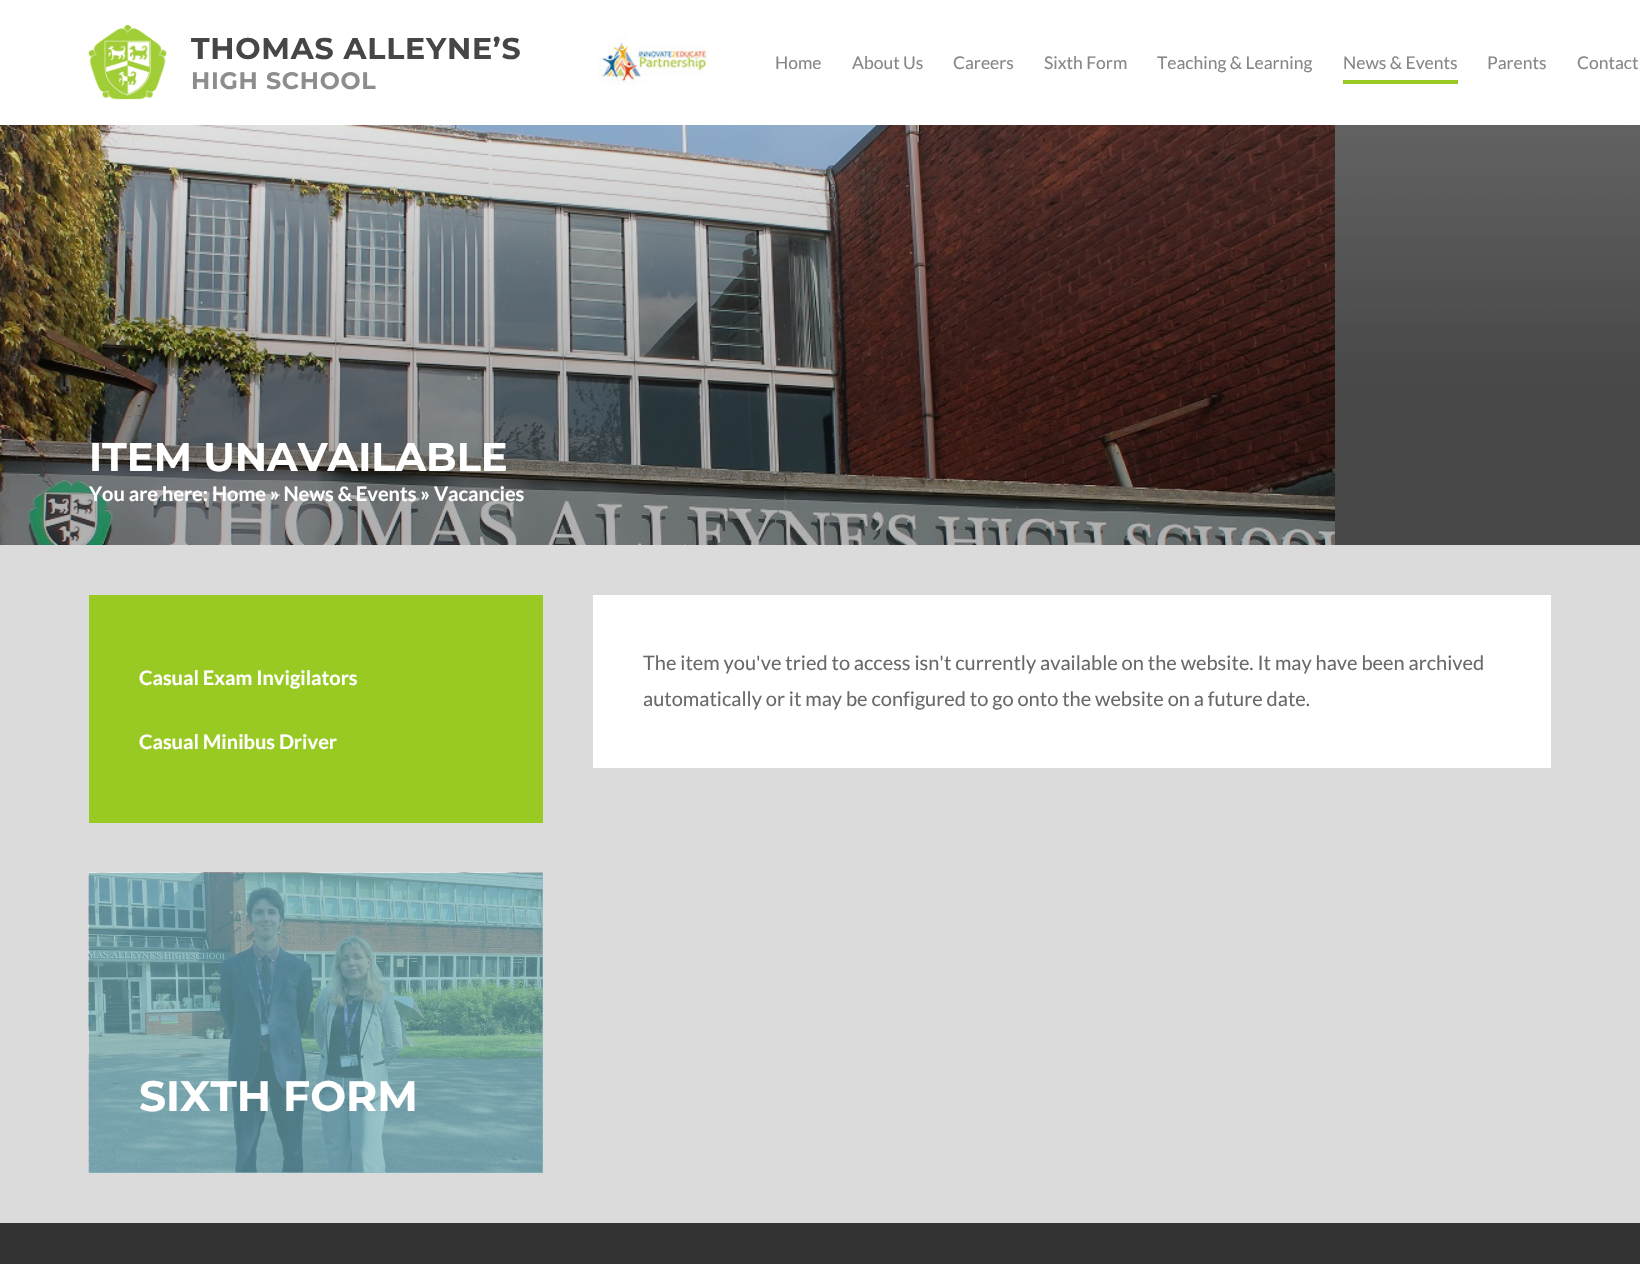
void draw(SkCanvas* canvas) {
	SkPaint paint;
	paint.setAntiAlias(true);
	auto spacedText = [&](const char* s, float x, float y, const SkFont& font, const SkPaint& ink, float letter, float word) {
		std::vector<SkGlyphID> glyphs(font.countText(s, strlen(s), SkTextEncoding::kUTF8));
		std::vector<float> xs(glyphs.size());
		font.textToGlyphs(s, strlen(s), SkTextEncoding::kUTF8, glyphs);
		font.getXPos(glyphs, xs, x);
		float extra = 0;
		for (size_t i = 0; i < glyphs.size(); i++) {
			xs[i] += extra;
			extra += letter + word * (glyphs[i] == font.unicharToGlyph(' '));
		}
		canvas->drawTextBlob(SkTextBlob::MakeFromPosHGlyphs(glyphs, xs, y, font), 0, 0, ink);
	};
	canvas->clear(0xffdbdbdb);
	paint.setColor(0xff91bac0);
	canvas->drawRect(SkRect::MakeXYWH(89, 873, 454, 300), paint);
	paint.setColor(0xffffffff);
	canvas->drawRect(SkRect::MakeXYWH(0, 0, 1640, 125), paint);
	canvas->drawImageRect(SkImages::DeferredFromEncodedData(SkData::MakeFromFileName("img1.png")), SkRect::MakeXYWH(88, 25, 79, 75), SkSamplingOptions());
	SkFont f1(fontMgr->matchFamilyStyle("Montserrat", SkFontStyle::Bold()), 30);
	f1.setSubpixel(true);
	paint.setColor(0xff464646);
	spacedText("THOMAS ALLEYNE’S", 191, 59, f1, paint, 0.75, 0);
	SkFont f2(fontMgr->matchFamilyStyle("Montserrat", SkFontStyle::Bold()), 23.75);
	f2.setSubpixel(true);
	paint.setColor(0xff8e8d8d);
	spacedText("HIGH SCHOOL", 191, 89, f2, paint, 0.75, 0);
	canvas->drawImageRect(SkImages::DeferredFromEncodedData(SkData::MakeFromFileName("img2.png")), SkRect::MakeXYWH(598, 35, 110, 50), SkSamplingOptions());
	SkFont f3(fontMgr->matchFamilyStyle("Lato", SkFontStyle::Normal()), 17.5);
	f3.setSubpixel(true);
	paint.setColor(0xff868686);
	canvas->drawString("Home", 775, 69, f3, paint);
	canvas->drawString("About Us", 852, 69, f3, paint);
	canvas->drawString("Careers", 953, 69, f3, paint);
	canvas->drawString("Sixth Form", 1044, 69, f3, paint);
	canvas->drawString("Teaching & Learning", 1157, 69, f3, paint);
	canvas->drawString("News & Events", 1343, 69, f3, paint);
	paint.setColor(0xff99ca24);
	canvas->drawRect(SkRect::MakeXYWH(1343, 80, 115, 4), paint);
	paint.setColor(0xff868686);
	canvas->drawString("Parents", 1487, 69, f3, paint);
	canvas->drawString("Contact", 1577, 69, f3, paint);
	paint.setColor(0xff666666);
	canvas->drawRect(SkRect::MakeXYWH(1335, 125, 305, 420), paint);
	canvas->drawImageRect(SkImages::DeferredFromEncodedData(SkData::MakeFromFileName("img3.png")), SkRect::MakeXYWH(0, 125, 1335, 420), SkSamplingOptions());
	canvas->drawImageRect(SkImages::DeferredFromEncodedData(SkData::MakeFromFileName("img4.png")), SkRect::MakeXYWH(0, 125, 1640, 420), SkSamplingOptions());
	SkFont f4(fontMgr->matchFamilyStyle("Montserrat", SkFontStyle::Bold()), 40);
	f4.setSubpixel(true);
	paint.setColor(0xffffffff);
	canvas->drawString("ITEM UNAVAILABLE", 89, 471, f4, paint);
	SkFont f5(fontMgr->matchFamilyStyle("Lato", SkFontStyle::Bold()), 20);
	f5.setSubpixel(true);
	canvas->drawString("You are here: Home » News & Events » Vacancies", 89, 501, f5, paint);
	paint.setColor(0xff99ca24);
	canvas->drawRect(SkRect::MakeXYWH(89, 595, 454, 228), paint);
	paint.setColor(0xffffffff);
	canvas->drawString("Casual Exam Invigilators", 139, 685, f5, paint);
	canvas->drawString("Casual Minibus Driver", 139, 749, f5, paint);
	canvas->drawImageRect(SkImages::DeferredFromEncodedData(SkData::MakeFromFileName("img5.png")), SkRect::MakeXYWH(88, 872, 455, 301), SkSamplingOptions());
	SkFont f6(fontMgr->matchFamilyStyle("Montserrat", SkFontStyle::Bold()), 42.5);
	f6.setSubpixel(true);
	canvas->drawString("SIXTH FORM", 139, 1111, f6, paint);
	canvas->drawRect(SkRect::MakeXYWH(593, 595, 958, 173), paint);
	SkFont f7(fontMgr->matchFamilyStyle("Lato", SkFontStyle::Normal()), 20);
	f7.setSubpixel(true);
	paint.setColor(0xff696969);
	canvas->drawString("The item you've tried to access isn't currently available on the website. It may have been archived", 643, 670, f7, paint);
	canvas->drawString("automatically or it may be configured to go onto the website on a future date.", 643, 706, f7, paint);
	paint.setColor(0xff333333);
	canvas->drawRect(SkRect::MakeXYWH(0, 1223, 1640, 41), paint);
}
